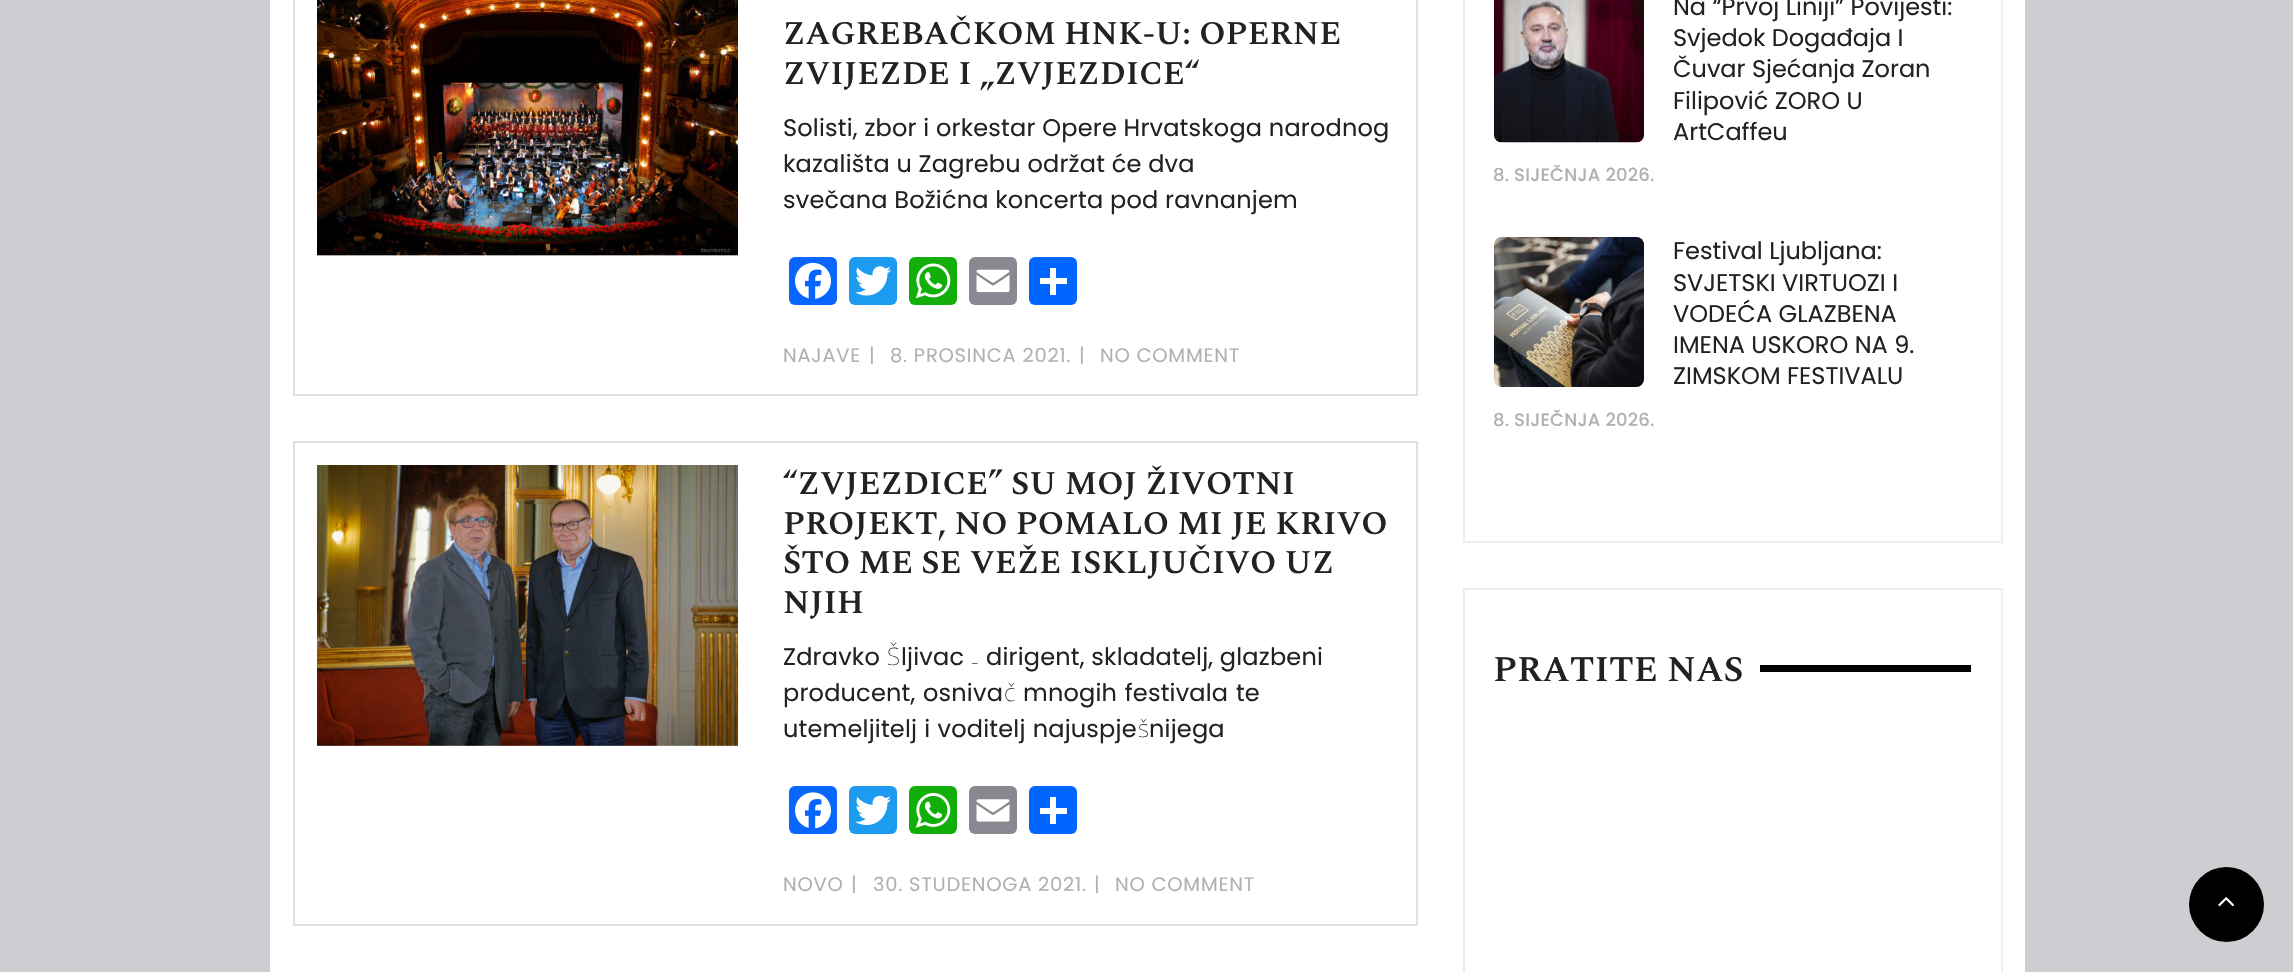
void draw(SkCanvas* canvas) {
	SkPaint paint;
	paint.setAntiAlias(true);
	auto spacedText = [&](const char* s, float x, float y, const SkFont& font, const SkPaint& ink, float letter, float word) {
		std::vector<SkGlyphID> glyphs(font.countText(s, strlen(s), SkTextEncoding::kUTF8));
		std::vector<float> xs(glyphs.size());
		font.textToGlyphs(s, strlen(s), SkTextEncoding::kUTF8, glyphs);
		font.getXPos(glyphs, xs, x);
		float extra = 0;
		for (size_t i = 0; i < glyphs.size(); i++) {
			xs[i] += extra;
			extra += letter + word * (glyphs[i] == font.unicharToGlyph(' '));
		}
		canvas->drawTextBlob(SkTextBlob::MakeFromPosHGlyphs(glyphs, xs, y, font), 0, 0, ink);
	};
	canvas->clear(0xffccced1);
	paint.setColor(0xffffffff);
	canvas->drawRect(SkRect::MakeXYWH(270, 0, 1755, 972), paint);
	paint.setStroke(true);
	paint.setStrokeWidth(2);
	paint.setColor(0xffe0e0e0);
	canvas->drawRect(SkRect::MakeXYWH(294, -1, 1123, 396), paint);
	canvas->drawImageRect(SkImages::DeferredFromEncodedData(SkData::MakeFromFileName("img1.png")), SkRect::MakeXYWH(317, 0, 421, 256), SkSamplingOptions());
	SkFont f1(fontMgr->matchFamilyStyle("Spectral SC", SkFontStyle(600, SkFontStyle::kNormal_Width, SkFontStyle::kUpright_Slant)), 33);
	f1.setSubpixel(true);
	paint.setStroke(false);
	paint.setColor(0xff222222);
	canvas->drawString("ZAGREBAČKOM HNK-U: OPERNE", 783, 44, f1, paint);
	canvas->drawString("ZVIJEZDE I „ZVJEZDICE“", 783, 84, f1, paint);
	SkFont f2(fontMgr->matchFamilyStyle("Poppins", SkFontStyle::Normal()), 24);
	f2.setSubpixel(true);
	spacedText("Solisti, zbor i orkestar Opere Hrvatskoga narodnog", 783, 136, f2, paint, 0.2, 0);
	spacedText("kazališta u Zagrebu održat će dva", 783, 172, f2, paint, 0.2, 0);
	spacedText("svečana Božićna koncerta pod ravnanjem", 783, 208, f2, paint, 0.2, 0);
	paint.setColor(0xff0866ff);
	canvas->drawRoundRect(SkRect::MakeXYWH(789, 257, 48, 48), 6, 6, paint);
	canvas->drawImageRect(SkImages::DeferredFromEncodedData(SkData::MakeFromFileName("img2.png")), SkRect::MakeXYWH(795, 262, 36, 37), SkSamplingOptions());
	paint.setColor(0xff1d9bf0);
	canvas->drawRoundRect(SkRect::MakeXYWH(849, 257, 48, 48), 6, 6, paint);
	canvas->drawImageRect(SkImages::DeferredFromEncodedData(SkData::MakeFromFileName("img3.png")), SkRect::MakeXYWH(855, 266, 36, 30), SkSamplingOptions());
	paint.setColor(0xff12af0a);
	canvas->drawRoundRect(SkRect::MakeXYWH(909, 257, 48, 48), 6, 6, paint);
	canvas->drawImageRect(SkImages::DeferredFromEncodedData(SkData::MakeFromFileName("img4.png")), SkRect::MakeXYWH(915, 263, 36, 36), SkSamplingOptions());
	paint.setColor(0xff888990);
	canvas->drawRoundRect(SkRect::MakeXYWH(969, 257, 48, 48), 6, 6, paint);
	canvas->drawImageRect(SkImages::DeferredFromEncodedData(SkData::MakeFromFileName("img5.png")), SkRect::MakeXYWH(976, 269, 34, 24), SkSamplingOptions());
	paint.setColor(0xff0166ff);
	canvas->drawRoundRect(SkRect::MakeXYWH(1029, 257, 48, 48), 6, 6, paint);
	paint.setColor(0xffffffff);
	canvas->drawRect(SkRect::MakeXYWH(1050, 268, 6, 27), paint);
	canvas->drawRect(SkRect::MakeXYWH(1040, 278, 27, 6), paint);
	SkFont f3(fontMgr->matchFamilyStyle("Poppins", SkFontStyle::Normal()), 19.5);
	f3.setSubpixel(true);
	paint.setColor(0xffb1b1b1);
	spacedText("NAJAVE", 783, 362, f3, paint, 0.75, 0);
	spacedText("|", 869, 362, f3, paint, 0.75, 0);
	spacedText("8. PROSINCA 2021.", 890, 362, f3, paint, 0.75, 0);
	spacedText("|", 1079, 362, f3, paint, 0.75, 0);
	spacedText("NO COMMENT", 1100, 362, f3, paint, 0.75, 0);
	paint.setStroke(true);
	paint.setColor(0xffe0e0e0);
	canvas->drawRect(SkRect::MakeXYWH(294, 442, 1123, 483), paint);
	canvas->drawImageRect(SkImages::DeferredFromEncodedData(SkData::MakeFromFileName("img6.png")), SkRect::MakeXYWH(317, 465, 421, 281), SkSamplingOptions());
	paint.setStroke(false);
	paint.setColor(0xff222222);
	canvas->drawString("“ZVJEZDICE” SU MOJ ŽIVOTNI", 783, 494, f1, paint);
	canvas->drawString("PROJEKT, NO POMALO MI JE KRIVO", 783, 534, f1, paint);
	canvas->drawString("ŠTO ME SE VEŽE ISKLJUČIVO UZ", 783, 573, f1, paint);
	canvas->drawString("NJIH", 783, 613, f1, paint);
	spacedText("Zdravko", 783, 665, f2, paint, 0.2, 0);
	SkFont f4(fontMgr->matchFamilyStyle("Noto Sans", SkFontStyle(100, SkFontStyle::kNormal_Width, SkFontStyle::kUpright_Slant)), 24);
	f4.setSubpixel(true);
	spacedText("Š", 887, 665, f4, paint, 0.2, 0);
	spacedText("ljivac", 901, 665, f2, paint, 0.2, 0);
	spacedText("₋", 971, 665, f4, paint, 0.2, 0);
	spacedText("dirigent, skladatelj, glazbeni", 986, 665, f2, paint, 0.2, 0);
	spacedText("producent, osniva", 783, 701, f2, paint, 0.2, 1);
	spacedText("č", 1004, 701, f4, paint, 0.2, 0);
	spacedText("mnogih festivala te", 1023, 701, f2, paint, 0.2, 1);
	spacedText("utemeljitelj i voditelj najuspje", 783, 737, f2, paint, 0.2, 0.5);
	spacedText("š", 1138, 737, f4, paint, 0.2, 0);
	spacedText("nijega", 1149, 737, f2, paint, 0.2, 0);
	paint.setColor(0xff0866ff);
	canvas->drawRoundRect(SkRect::MakeXYWH(789, 786, 48, 48), 6, 6, paint);
	canvas->drawImageRect(SkImages::DeferredFromEncodedData(SkData::MakeFromFileName("img7.png")), SkRect::MakeXYWH(795, 792, 36, 37), SkSamplingOptions());
	paint.setColor(0xff1d9bf0);
	canvas->drawRoundRect(SkRect::MakeXYWH(849, 786, 48, 48), 6, 6, paint);
	canvas->drawImageRect(SkImages::DeferredFromEncodedData(SkData::MakeFromFileName("img8.png")), SkRect::MakeXYWH(855, 795, 36, 30), SkSamplingOptions());
	paint.setColor(0xff12af0a);
	canvas->drawRoundRect(SkRect::MakeXYWH(909, 786, 48, 48), 6, 6, paint);
	canvas->drawImageRect(SkImages::DeferredFromEncodedData(SkData::MakeFromFileName("img9.png")), SkRect::MakeXYWH(915, 793, 36, 35), SkSamplingOptions());
	paint.setColor(0xff888990);
	canvas->drawRoundRect(SkRect::MakeXYWH(969, 786, 48, 48), 6, 6, paint);
	canvas->drawImageRect(SkImages::DeferredFromEncodedData(SkData::MakeFromFileName("img10.png")), SkRect::MakeXYWH(976, 799, 34, 23), SkSamplingOptions());
	paint.setColor(0xff0166ff);
	canvas->drawRoundRect(SkRect::MakeXYWH(1029, 786, 48, 48), 6, 6, paint);
	paint.setColor(0xffffffff);
	canvas->drawRect(SkRect::MakeXYWH(1050, 797, 6, 27), paint);
	canvas->drawRect(SkRect::MakeXYWH(1040, 808, 27, 6), paint);
	paint.setColor(0xffb1b1b1);
	spacedText("NOVO", 783, 891, f3, paint, 0.75, 0);
	spacedText("|", 851, 891, f3, paint, 0.75, 0);
	spacedText("30. STUDENOGA 2021.", 873, 891, f3, paint, 0.75, 0);
	spacedText("|", 1094, 891, f3, paint, 0.75, 0);
	spacedText("NO COMMENT", 1115, 891, f3, paint, 0.75, 0);
	paint.setStroke(true);
	paint.setColor(0xffeeeeee);
	canvas->drawRect(SkRect::MakeXYWH(1464, -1, 538, 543), paint);
	canvas->drawImageRect(SkImages::DeferredFromEncodedData(SkData::MakeFromFileName("img11.png")), SkRect::MakeXYWH(1494, 0, 150, 143), SkSamplingOptions());
	paint.setStroke(false);
	paint.setColor(0xff222222);
	canvas->drawString("Na “Prvoj Liniji” Povijesti:", 1673, 15, f2, paint);
	canvas->drawString("Svjedok Događaja I", 1673, 46, f2, paint);
	canvas->drawString("Čuvar Sjećanja Zoran", 1673, 77, f2, paint);
	canvas->drawString("Filipović ZORO U", 1673, 109, f2, paint);
	canvas->drawString("ArtCaffeu", 1673, 140, f2, paint);
	SkFont f5(fontMgr->matchFamilyStyle("Poppins", SkFontStyle(500, SkFontStyle::kNormal_Width, SkFontStyle::kUpright_Slant)), 18);
	f5.setSubpixel(true);
	paint.setColor(0xffb1b1b1);
	spacedText("8. SIJEČNJA 2026.", 1493, 181, f5, paint, 0.2, 0);
	canvas->drawImageRect(SkImages::DeferredFromEncodedData(SkData::MakeFromFileName("img12.png")), SkRect::MakeXYWH(1494, 237, 150, 150), SkSamplingOptions());
	paint.setColor(0xff222222);
	canvas->drawString("Festival Ljubljana:", 1673, 259, f2, paint);
	canvas->drawString("SVJETSKI VIRTUOZI I", 1673, 291, f2, paint);
	canvas->drawString("VODEĆA GLAZBENA", 1673, 322, f2, paint);
	canvas->drawString("IMENA USKORO NA 9.", 1673, 353, f2, paint);
	canvas->drawString("ZIMSKOM FESTIVALU", 1673, 384, f2, paint);
	paint.setColor(0xffb1b1b1);
	spacedText("8. SIJEČNJA 2026.", 1493, 426, f5, paint, 0.2, 0);
	paint.setStroke(true);
	paint.setColor(0xffeeeeee);
	canvas->drawRect(SkRect::MakeXYWH(1464, 589, 538, 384), paint);
	SkFont f6(fontMgr->matchFamilyStyle("Spectral SC", SkFontStyle(600, SkFontStyle::kNormal_Width, SkFontStyle::kUpright_Slant)), 36);
	f6.setSubpixel(true);
	paint.setStroke(false);
	paint.setColor(0xff222222);
	canvas->drawString("PRATITE NAS", 1493, 681, f6, paint);
	paint.setColor(0xff010101);
	canvas->drawRect(SkRect::MakeXYWH(1760, 665, 211, 7), paint);
	paint.setColor(0xff000000);
	canvas->drawCircle(2226.5, 904.5, 37.5, paint);
	canvas->drawImageRect(SkImages::DeferredFromEncodedData(SkData::MakeFromFileName("img13.png")), SkRect::MakeXYWH(2218, 897, 16, 10), SkSamplingOptions());
}
